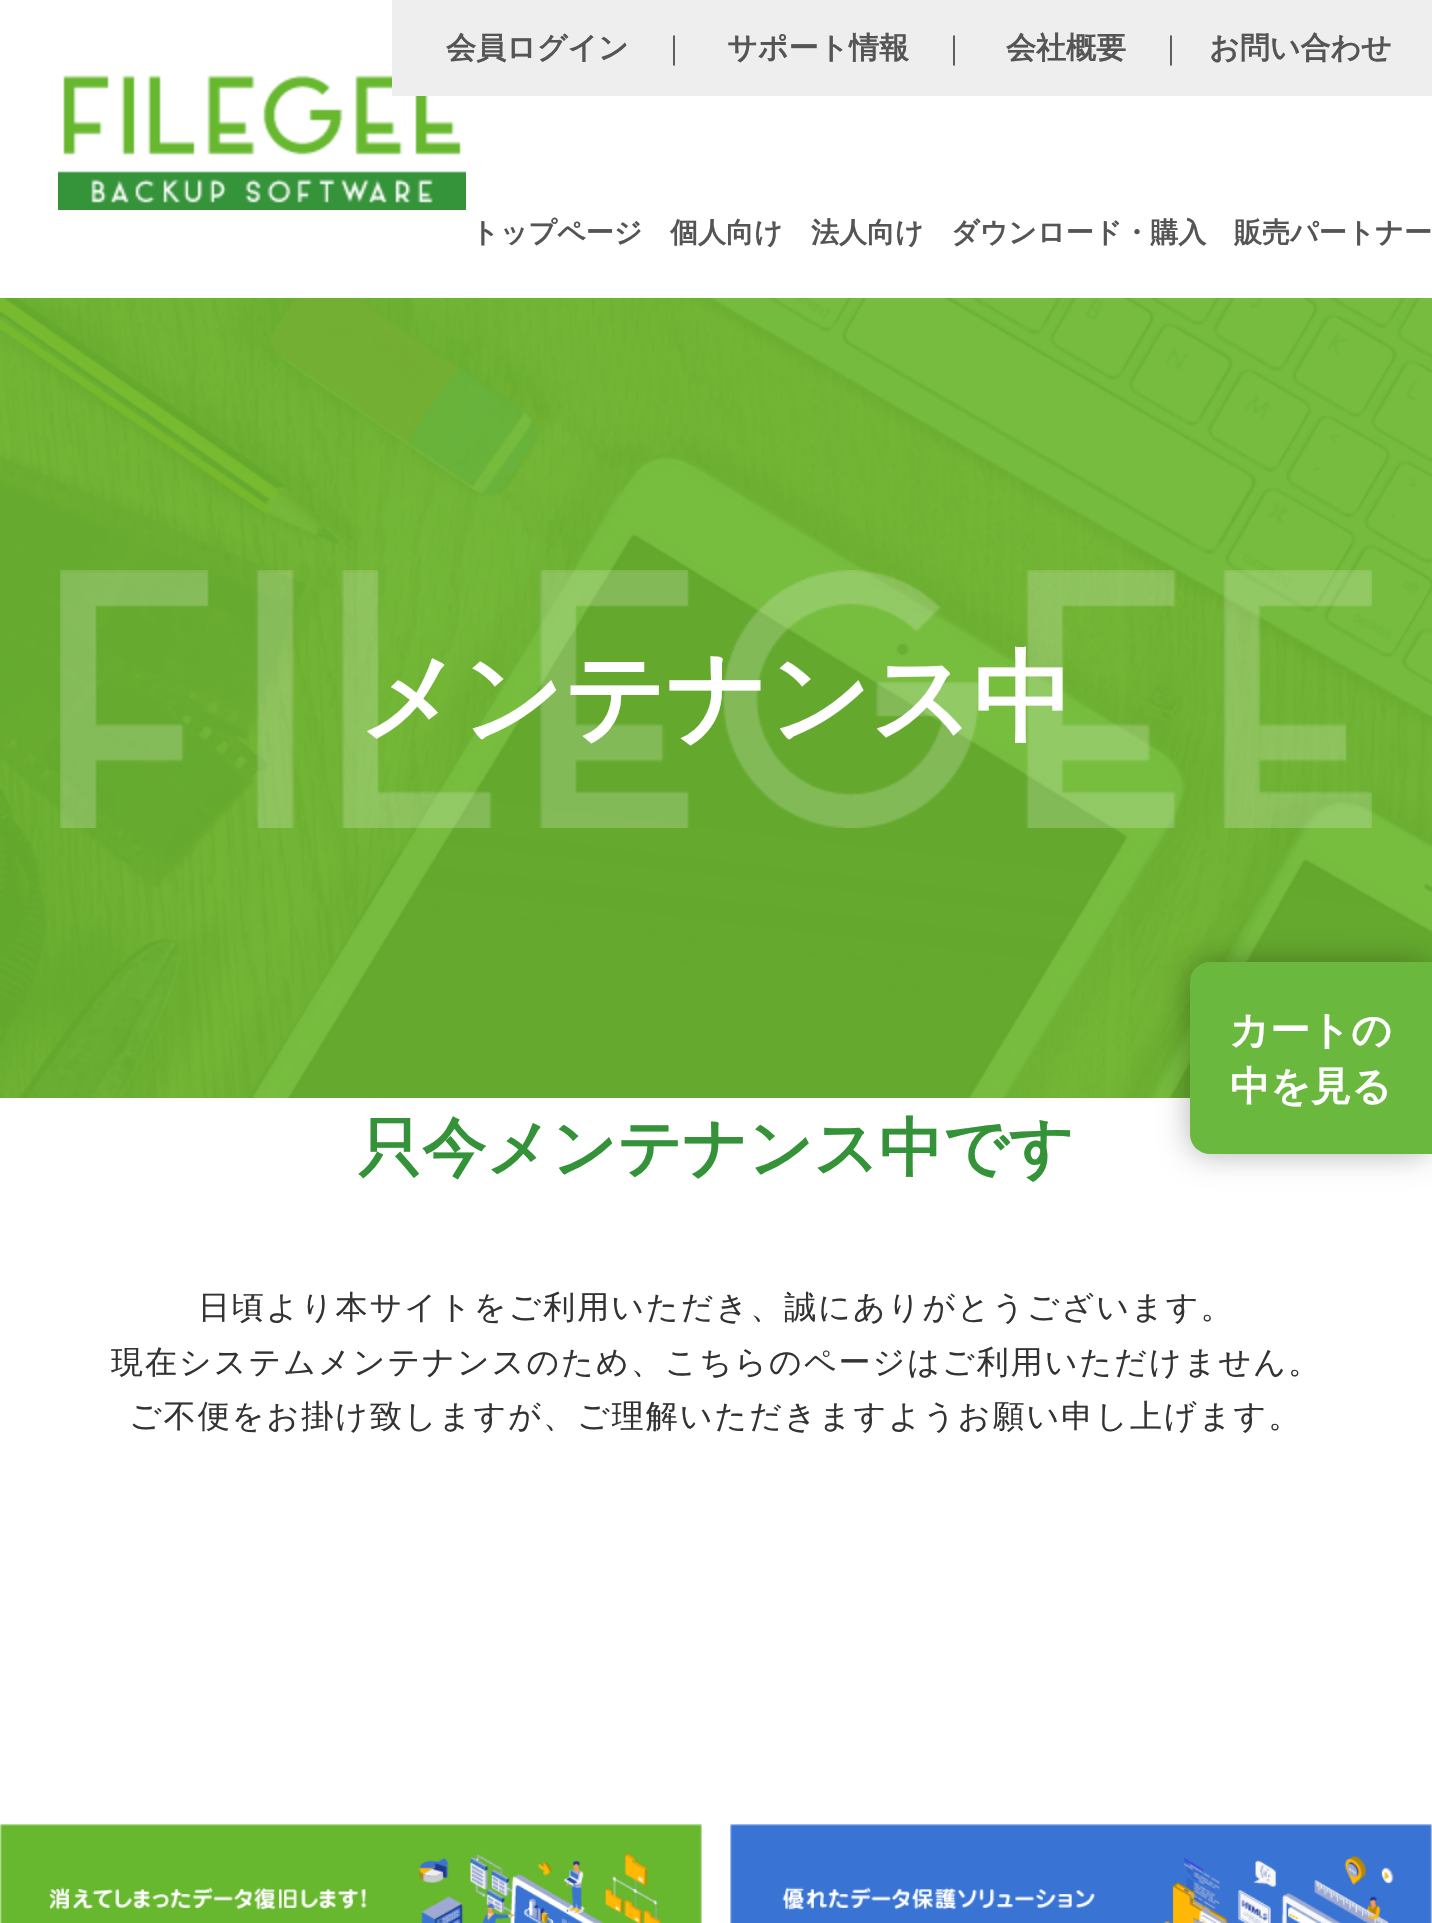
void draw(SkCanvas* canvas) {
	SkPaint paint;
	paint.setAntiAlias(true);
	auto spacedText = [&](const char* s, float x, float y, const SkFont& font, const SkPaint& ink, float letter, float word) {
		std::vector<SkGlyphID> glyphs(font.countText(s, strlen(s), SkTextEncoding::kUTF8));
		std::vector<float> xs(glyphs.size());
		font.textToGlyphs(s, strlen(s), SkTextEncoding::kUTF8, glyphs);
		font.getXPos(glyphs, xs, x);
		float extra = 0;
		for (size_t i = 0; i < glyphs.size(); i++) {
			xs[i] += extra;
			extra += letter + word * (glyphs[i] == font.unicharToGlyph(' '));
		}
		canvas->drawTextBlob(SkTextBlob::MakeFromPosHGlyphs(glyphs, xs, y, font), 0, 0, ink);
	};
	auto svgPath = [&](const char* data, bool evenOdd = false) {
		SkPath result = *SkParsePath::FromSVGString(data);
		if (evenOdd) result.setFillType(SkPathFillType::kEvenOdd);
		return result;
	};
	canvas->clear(0xffffffff);
	canvas->drawImageRect(SkImages::DeferredFromEncodedData(SkData::MakeFromFileName("img1.png")), SkRect::MakeXYWH(58, 75, 408, 135), SkSamplingOptions());
	paint.setColor(0xffeeeeee);
	canvas->drawRect(SkRect::MakeXYWH(392, 0, 1040, 96), paint);
	SkFont f1(fontMgr->matchFamilyStyle("WenQuanYi Zen Hei", SkFontStyle::Bold()), 30);
	f1.setSubpixel(true);
	paint.setColor(0xff555555);
	canvas->drawString("会員ログイン", 446, 58, f1, paint);
	SkFont f2(fontMgr->matchFamilyStyle("WenQuanYi Zen Hei", SkFontStyle(500, SkFontStyle::kNormal_Width, SkFontStyle::kUpright_Slant)), 30);
	f2.setSubpixel(true);
	canvas->drawString("｜", 659, 58, f2, paint);
	canvas->drawString("サポート情報", 727, 58, f1, paint);
	canvas->drawString("｜", 939, 58, f2, paint);
	canvas->drawString("会社概要", 1006, 58, f1, paint);
	canvas->drawString("｜", 1156, 58, f2, paint);
	canvas->drawString("お問い合わせ", 1209, 58, f1, paint);
	SkFont f3(fontMgr->matchFamilyStyle("WenQuanYi Zen Hei", SkFontStyle::Bold()), 28);
	f3.setSubpixel(true);
	canvas->drawString("トップページ", 471, 242, f3, paint);
	canvas->drawString("個人向け", 670, 242, f3, paint);
	canvas->drawString("法人向け", 811, 242, f3, paint);
	canvas->drawString("ダウンロード・購入", 951, 242, f3, paint);
	canvas->drawString("販売パートナー", 1234, 242, f3, paint);
	canvas->drawImageRect(SkImages::DeferredFromEncodedData(SkData::MakeFromFileName("img2.png")), SkRect::MakeXYWH(0, 298, 1432, 800), SkSamplingOptions());
	canvas->drawImageRect(SkImages::DeferredFromEncodedData(SkData::MakeFromFileName("img3.png")), SkRect::MakeXYWH(60, 570, 1312, 258), SkSamplingOptions());
	SkFont f4(fontMgr->matchFamilyStyle("WenQuanYi Zen Hei", SkFontStyle::Bold()), 100);
	f4.setSubpixel(true);
	paint.setColor(0xffffffff);
	canvas->drawString("メンテナンス中", 359, 732, f4, paint);
	SkFont f5(fontMgr->matchFamilyStyle("WenQuanYi Zen Hei", SkFontStyle::Bold()), 64);
	f5.setSubpixel(true);
	paint.setColor(0xff349339);
	canvas->drawString("只今メンテナンス中です", 358, 1170, f5, paint);
	SkFont f6(fontMgr->matchFamilyStyle("WenQuanYi Zen Hei", SkFontStyle(500, SkFontStyle::kNormal_Width, SkFontStyle::kUpright_Slant)), 32);
	f6.setSubpixel(true);
	paint.setColor(0xff333333);
	spacedText("日頃より本サイトをご利用いただき、誠にありがとうございます。", 198, 1318, f6, paint, 2, 0);
	spacedText("現在システムメンテナンスのため、こちらのページはご利用いただけません。", 111, 1373, f6, paint, 2, 0);
	spacedText("ご不便をお掛け致しますが、ご理解いただきますようお願い申し上げます。", 129, 1427, f6, paint, 2, 0);
	canvas->drawImageRect(SkImages::DeferredFromEncodedData(SkData::MakeFromFileName("img4.png")), SkRect::MakeXYWH(0, 1824, 702, 99), SkSamplingOptions());
	canvas->drawImageRect(SkImages::DeferredFromEncodedData(SkData::MakeFromFileName("img5.png")), SkRect::MakeXYWH(730, 1824, 702, 99), SkSamplingOptions());
	paint.setColor(0x4d000000);
	paint.setMaskFilter(SkMaskFilter::MakeBlur(kNormal_SkBlurStyle, 15));
	canvas->drawRoundRect(SkRect::MakeXYWH(1190, 962, 242, 192), 20, 20, paint);
	paint.setMaskFilter(nullptr);
	paint.setColor(0xff6bb83f);
	canvas->drawPath(svgPath("M1210 962H1432V1154H1210C1199 1154 1190 1145 1190 1134V982C1190 971 1199 962 1210 962Z"), paint);
	SkFont f7(fontMgr->matchFamilyStyle("WenQuanYi Zen Hei", SkFontStyle::Bold()), 40);
	f7.setSubpixel(true);
	paint.setColor(0xffffffff);
	canvas->drawString("カートの", 1229, 1044, f7, paint);
	canvas->drawString("中を見る", 1230, 1100, f7, paint);
}
